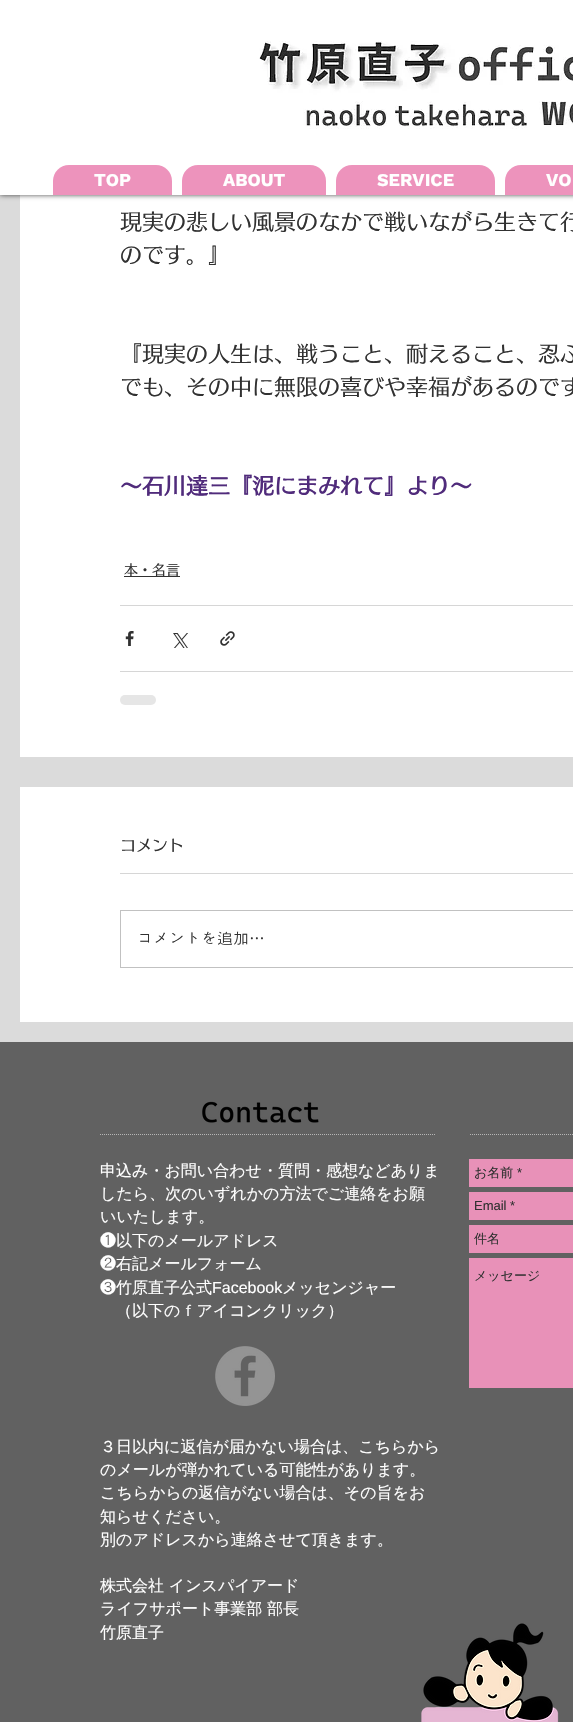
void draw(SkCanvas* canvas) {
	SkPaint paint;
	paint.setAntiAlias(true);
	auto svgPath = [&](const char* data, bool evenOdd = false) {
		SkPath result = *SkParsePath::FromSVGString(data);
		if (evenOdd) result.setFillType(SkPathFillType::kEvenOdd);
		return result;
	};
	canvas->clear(0xffdbdbdb);
	paint.setColor(0xffffffff);
	canvas->drawRect(SkRect::MakeXYWH(20, 195, 553, 562), paint);
	paint.setColor(0xb3000000);
	paint.setMaskFilter(SkMaskFilter::MakeBlur(kNormal_SkBlurStyle, 2.5));
	canvas->drawRect(SkRect::MakeXYWH(0, 0, 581, 195), paint);
	paint.setMaskFilter(nullptr);
	paint.setColor(0xffffffff);
	canvas->drawRect(SkRect::MakeXYWH(0, 0, 573, 195), paint);
	canvas->drawImageRect(SkImages::DeferredFromEncodedData(SkData::MakeFromFileName("img1.png")), SkRect::MakeXYWH(259, 41, 314, 88), SkSamplingOptions());
	paint.setColor(0xffed93bc);
	canvas->drawPath(svgPath("M69 165H156C165 165 172 172 172 181V195H53V181C53 172 60 165 69 165Z"), paint);
	SkFont f1(fontMgr->matchFamilyStyle("Work Sans", SkFontStyle::Bold()), 18);
	f1.setSubpixel(true);
	paint.setColor(0xffffffff);
	canvas->drawString("TOP", 94, 186, f1, paint);
	paint.setColor(0xffed93bc);
	canvas->drawPath(svgPath("M198 165H310C319 165 326 172 326 181V195H182V181C182 172 189 165 198 165Z"), paint);
	paint.setColor(0xffffffff);
	canvas->drawString("ABOUT", 223, 186, f1, paint);
	paint.setColor(0xffed93bc);
	canvas->drawPath(svgPath("M352 165H479C488 165 495 172 495 181V195H336V181C336 172 343 165 352 165Z"), paint);
	paint.setColor(0xffffffff);
	canvas->drawString("SERVICE", 377, 186, f1, paint);
	paint.setColor(0xffed93bc);
	canvas->drawPath(svgPath("M521 165H573C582 165 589 172 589 181V195H505V181C505 172 512 165 521 165Z"), paint);
	paint.setColor(0xffffffff);
	canvas->drawString("VO", 546, 186, f1, paint);
	SkFont f2(fontMgr->matchFamilyStyle("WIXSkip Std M", SkFontStyle(500, SkFontStyle::kNormal_Width, SkFontStyle::kUpright_Slant)), 22);
	f2.setSubpixel(true);
	paint.setColor(0xff313131);
	canvas->drawString("現実の悲しい風景のなかで戦いながら生きて行", 120, 230, f2, paint);
	canvas->drawString("のです。』", 120, 263, f2, paint);
	canvas->drawString("『現実の人生は、戦うこと、耐えること、忍ぶ", 120, 362, f2, paint);
	canvas->drawString("でも、その中に無限の喜びや幸福があるのです", 120, 395, f2, paint);
	SkFont f3(fontMgr->matchFamilyStyle("WIXSkip Std M", SkFontStyle::Bold()), 22);
	f3.setSubpixel(true);
	paint.setColor(0xff502b7b);
	canvas->drawString("〜石川達三『泥にまみれて』より〜", 120, 494, f3, paint);
	paint.setColor(0xff313131);
	canvas->drawRect(SkRect::MakeXYWH(124, 576, 56, 1), paint);
	SkFont f4(fontMgr->matchFamilyStyle("WIXSkip Std M", SkFontStyle(500, SkFontStyle::kNormal_Width, SkFontStyle::kUpright_Slant)), 14);
	f4.setSubpixel(true);
	canvas->drawString("本・名言", 124, 575, f4, paint);
	paint.setColor(0xffd6d6d6);
	canvas->drawRect(SkRect::MakeXYWH(120, 605, 453, 1), paint);
	canvas->drawImageRect(SkImages::DeferredFromEncodedData(SkData::MakeFromFileName("img2.png")), SkRect::MakeXYWH(125, 631, 9, 15), SkSamplingOptions());
	canvas->drawImageRect(SkImages::DeferredFromEncodedData(SkData::MakeFromFileName("img3.png")), SkRect::MakeXYWH(173, 633, 15, 15), SkSamplingOptions());
	canvas->drawImageRect(SkImages::DeferredFromEncodedData(SkData::MakeFromFileName("img4.png")), SkRect::MakeXYWH(220, 631, 15, 15), SkSamplingOptions());
	canvas->drawRect(SkRect::MakeXYWH(120, 671, 453, 1), paint);
	paint.setColor(0xffe6e6e6);
	canvas->drawRoundRect(SkRect::MakeXYWH(120, 695, 36, 10), 5, 5, paint);
	paint.setColor(0xffffffff);
	canvas->drawRect(SkRect::MakeXYWH(20, 787, 553, 235), paint);
	SkFont f5(fontMgr->matchFamilyStyle("WIXSkip Std M", SkFontStyle(500, SkFontStyle::kNormal_Width, SkFontStyle::kUpright_Slant)), 16);
	f5.setSubpixel(true);
	paint.setColor(0xff313131);
	canvas->drawString("コメント", 120, 851, f5, paint);
	paint.setColor(0xffd6d6d6);
	canvas->drawRect(SkRect::MakeXYWH(120, 873, 453, 1), paint);
	paint.setStroke(true);
	paint.setStrokeWidth(1);
	paint.setColor(0xffc1c1c1);
	canvas->drawRect(SkRect::MakeXYWH(120.5, 910.5, 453, 57), paint);
	SkFont f6(fontMgr->matchFamilyStyle("Dotum", SkFontStyle::Normal()), 16);
	f6.setSubpixel(true);
	paint.setStroke(false);
	paint.setColor(0xff313131);
	canvas->drawString("コメントを追加…", 137, 944, f6, paint);
	paint.setColor(0xff616161);
	canvas->drawRect(SkRect::MakeXYWH(0, 1042, 573, 680), paint);
	canvas->drawImageRect(SkImages::DeferredFromEncodedData(SkData::MakeFromFileName("img5.png")), SkRect::MakeXYWH(202, 1101, 117, 22), SkSamplingOptions());
	paint.setStroke(true);
	paint.setColor(0xffb6b6b6);
	paint.setPathEffect(SkDashPathEffect::Make({{1, 1}}, 0));
	canvas->drawPath(svgPath("M100 1134.5H435"), paint);
	paint.setPathEffect(nullptr);
	paint.setPathEffect(SkDashPathEffect::Make({{1, 1}}, 0));
	canvas->drawPath(svgPath("M470 1134.5H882"), paint);
	paint.setPathEffect(nullptr);
	SkFont f7(fontMgr->matchFamilyStyle("WenQuanYi Zen Hei", SkFontStyle(500, SkFontStyle::kNormal_Width, SkFontStyle::kUpright_Slant)), 16);
	f7.setSubpixel(true);
	paint.setStroke(false);
	paint.setColor(0xffffffff);
	canvas->drawString("申込み・お問い合わせ・質問・感想などありま", 100, 1176, f7, paint);
	canvas->drawString("したら、次のいずれかの方法でご連絡をお願", 100, 1199, f7, paint);
	canvas->drawString("いいたします。", 100, 1222, f7, paint);
	SkFont f8(fontMgr->matchFamilyStyle("IPAPGothic", SkFontStyle::Normal()), 16);
	f8.setSubpixel(true);
	canvas->drawString("❶", 100, 1246, f8, paint);
	canvas->drawString("以下のメールアドレス", 116, 1246, f7, paint);
	canvas->drawString("❷", 100, 1269, f8, paint);
	canvas->drawString("右記メールフォーム", 116, 1269, f7, paint);
	canvas->drawString("❸", 100, 1293, f8, paint);
	canvas->drawString("竹原直子公式", 116, 1293, f7, paint);
	SkFont f9(fontMgr->matchFamilyStyle("Liberation Sans", SkFontStyle::Normal()), 16);
	f9.setSubpixel(true);
	canvas->drawString("Facebook", 212, 1293, f9, paint);
	canvas->drawString("メッセンジャー", 282, 1293, f7, paint);
	canvas->drawString("（以下のｆアイコンクリック）", 116, 1316, f7, paint);
	canvas->drawString("３日以内に返信が届かない場合は、こちらから", 100, 1452, f7, paint);
	canvas->drawString("のメールが弾かれている可能性があります。", 100, 1475, f7, paint);
	canvas->drawString("こちらからの返信がない場合は、その旨をお", 100, 1498, f7, paint);
	canvas->drawString("知らせください。", 100, 1522, f7, paint);
	canvas->drawString("別のアドレスから連絡させて頂きます。", 100, 1545, f7, paint);
	canvas->drawString("株式会社 インスパイアード", 100, 1591, f7, paint);
	canvas->drawString("ライフサポート事業部 部長", 100, 1614, f7, paint);
	canvas->drawString("竹原直子", 100, 1638, f7, paint);
	paint.setColor(0xffe891b8);
	canvas->drawRect(SkRect::MakeXYWH(469, 1159, 104, 28), paint);
	SkFont f10(fontMgr->matchFamilyStyle("WenQuanYi Zen Hei", SkFontStyle(500, SkFontStyle::kNormal_Width, SkFontStyle::kUpright_Slant)), 13);
	f10.setSubpixel(true);
	paint.setColor(0xff313131);
	canvas->drawString("お名前", 474, 1177, f10, paint);
	SkFont f11(fontMgr->matchFamilyStyle("Liberation Sans", SkFontStyle::Normal()), 13);
	f11.setSubpixel(true);
	canvas->drawString("*", 517, 1177, f11, paint);
	paint.setColor(0xffe891b8);
	canvas->drawRect(SkRect::MakeXYWH(469, 1192, 104, 28), paint);
	paint.setColor(0xff313131);
	canvas->drawString("Email *", 474, 1210, f11, paint);
	paint.setColor(0xffe891b8);
	canvas->drawRect(SkRect::MakeXYWH(469, 1225, 104, 28), paint);
	paint.setColor(0xff313131);
	canvas->drawString("件名", 474, 1243, f10, paint);
	paint.setColor(0xffe891b8);
	canvas->drawRect(SkRect::MakeXYWH(469, 1258, 104, 130), paint);
	paint.setColor(0xff313131);
	canvas->drawString("メッセージ", 474, 1280, f10, paint);
	canvas->drawImageRect(SkImages::DeferredFromEncodedData(SkData::MakeFromFileName("img6.png")), SkRect::MakeXYWH(215, 1346, 60, 60), SkSamplingOptions());
	canvas->drawImageRect(SkImages::DeferredFromEncodedData(SkData::MakeFromFileName("img7.png")), SkRect::MakeXYWH(421, 1623, 138, 99), SkSamplingOptions());
}
